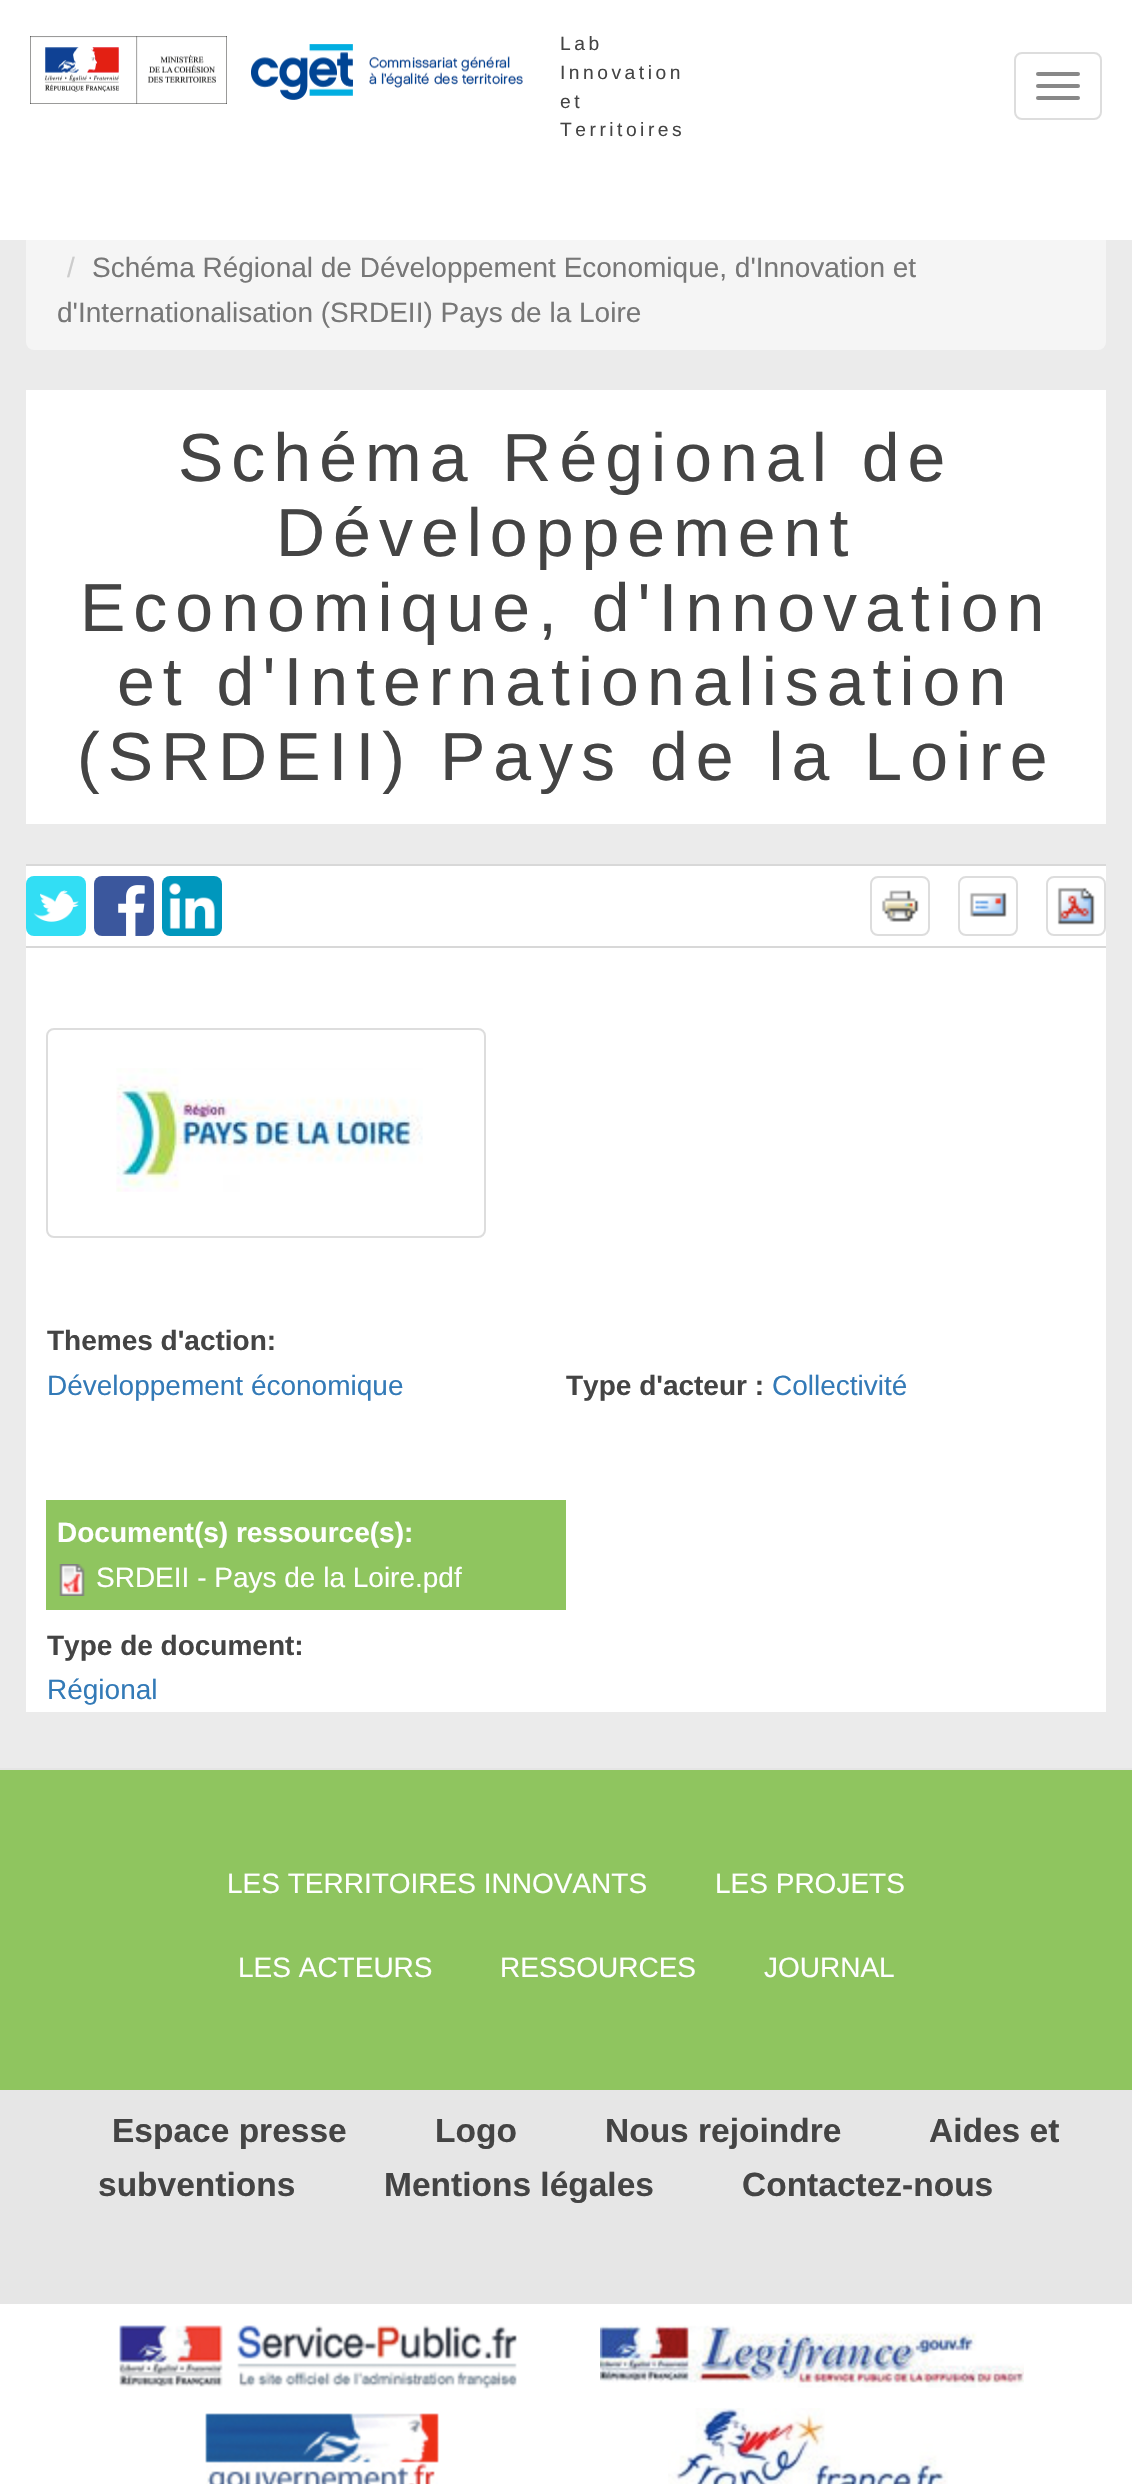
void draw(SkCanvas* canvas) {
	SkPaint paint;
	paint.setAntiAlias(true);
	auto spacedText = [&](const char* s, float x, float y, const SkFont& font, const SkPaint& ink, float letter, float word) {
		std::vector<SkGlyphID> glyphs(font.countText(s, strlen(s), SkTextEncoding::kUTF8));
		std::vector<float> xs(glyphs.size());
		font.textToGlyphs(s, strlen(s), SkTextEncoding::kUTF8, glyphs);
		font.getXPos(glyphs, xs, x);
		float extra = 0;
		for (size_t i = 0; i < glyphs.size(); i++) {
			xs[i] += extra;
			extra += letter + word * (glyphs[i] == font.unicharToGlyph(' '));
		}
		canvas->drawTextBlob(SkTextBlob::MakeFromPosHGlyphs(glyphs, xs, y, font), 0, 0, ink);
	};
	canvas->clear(0xffebebeb);
	paint.setColor(0xfff5f5f5);
	canvas->drawRoundRect(SkRect::MakeXYWH(26, 184, 1080, 166), 8, 8, paint);
	paint.setColor(0xffffffff);
	canvas->drawRect(SkRect::MakeXYWH(0, 0, 1132, 240), paint);
	canvas->drawImageRect(SkImages::DeferredFromEncodedData(SkData::MakeFromFileName("img1.png")), SkRect::MakeXYWH(30, 36, 493, 68), SkSamplingOptions());
	SkFont f1(fontMgr->matchFamilyStyle("Liberation Sans", SkFontStyle::Normal()), 19.25);
	f1.setSubpixel(true);
	paint.setColor(0xff444444);
	spacedText("Lab", 560, 50, f1, paint, 3.5, 0);
	spacedText("Innovation", 560, 79, f1, paint, 3.5, 0);
	spacedText("et", 560, 108, f1, paint, 3.5, 0);
	spacedText("Territoires", 560, 136, f1, paint, 3.5, 0);
	paint.setStroke(true);
	paint.setStrokeWidth(2);
	paint.setColor(0xffdddddd);
	canvas->drawRoundRect(SkRect::MakeXYWH(1015, 53, 86, 66), 7, 7, paint);
	paint.setStroke(false);
	paint.setColor(0xff888888);
	canvas->drawRoundRect(SkRect::MakeXYWH(1036, 72, 44, 4), 2, 2, paint);
	canvas->drawRoundRect(SkRect::MakeXYWH(1036, 84, 44, 4), 2, 2, paint);
	canvas->drawRoundRect(SkRect::MakeXYWH(1036, 96, 44, 4), 2, 2, paint);
	SkFont f2(fontMgr->matchFamilyStyle("Liberation Sans", SkFontStyle::Normal()), 28);
	f2.setSubpixel(true);
	paint.setColor(0xffcccccc);
	canvas->drawString("/", 67, 277, f2, paint);
	paint.setColor(0xff777777);
	canvas->drawString("Schéma Régional de Développement Economique, d'Innovation et", 92, 277, f2, paint);
	canvas->drawString("d'Internationalisation (SRDEII) Pays de la Loire", 57, 322, f2, paint);
	paint.setColor(0xffffffff);
	canvas->drawRect(SkRect::MakeXYWH(26, 390, 1080, 434), paint);
	SkFont f3(fontMgr->matchFamilyStyle("Liberation Sans", SkFontStyle::Normal()), 68);
	f3.setSubpixel(true);
	paint.setColor(0xff444444);
	spacedText("Schéma Régional de", 178, 481, f3, paint, 8, 0);
	spacedText("Développement", 276, 556, f3, paint, 8, 0);
	spacedText("Economique, d'Innovation", 80, 631, f3, paint, 8, 0);
	spacedText("et d'Internationalisation", 117, 705, f3, paint, 8, 0);
	spacedText("(SRDEII) Pays de la Loire", 77, 780, f3, paint, 8, 0);
	paint.setColor(0xffd8d8d8);
	canvas->drawRect(SkRect::MakeXYWH(26, 864, 1080, 2), paint);
	paint.setColor(0xffffffff);
	canvas->drawRect(SkRect::MakeXYWH(26, 866, 1080, 846), paint);
	paint.setColor(0xffd8d8d8);
	canvas->drawRect(SkRect::MakeXYWH(26, 946, 1080, 2), paint);
	canvas->drawImageRect(SkImages::DeferredFromEncodedData(SkData::MakeFromFileName("img2.png")), SkRect::MakeXYWH(26, 876, 60, 60), SkSamplingOptions());
	canvas->drawImageRect(SkImages::DeferredFromEncodedData(SkData::MakeFromFileName("img3.png")), SkRect::MakeXYWH(94, 876, 60, 60), SkSamplingOptions());
	canvas->drawImageRect(SkImages::DeferredFromEncodedData(SkData::MakeFromFileName("img4.png")), SkRect::MakeXYWH(162, 876, 60, 60), SkSamplingOptions());
	paint.setStroke(true);
	paint.setColor(0xffdddddd);
	canvas->drawRoundRect(SkRect::MakeXYWH(871, 877, 58, 58), 7, 7, paint);
	canvas->drawImageRect(SkImages::DeferredFromEncodedData(SkData::MakeFromFileName("img5.png")), SkRect::MakeXYWH(881, 890, 38, 32), SkSamplingOptions());
	canvas->drawRoundRect(SkRect::MakeXYWH(959, 877, 58, 58), 7, 7, paint);
	canvas->drawImageRect(SkImages::DeferredFromEncodedData(SkData::MakeFromFileName("img6.png")), SkRect::MakeXYWH(969, 892, 38, 25), SkSamplingOptions());
	canvas->drawRoundRect(SkRect::MakeXYWH(1047, 877, 58, 58), 7, 7, paint);
	canvas->drawImageRect(SkImages::DeferredFromEncodedData(SkData::MakeFromFileName("img7.png")), SkRect::MakeXYWH(1057, 887, 38, 38), SkSamplingOptions());
	canvas->drawRoundRect(SkRect::MakeXYWH(47, 1029, 438, 208), 7, 7, paint);
	canvas->drawImageRect(SkImages::DeferredFromEncodedData(SkData::MakeFromFileName("img8.png")), SkRect::MakeXYWH(116, 1068, 307, 124), SkSamplingOptions());
	SkFont f4(fontMgr->matchFamilyStyle("Liberation Sans", SkFontStyle::Bold()), 28);
	f4.setSubpixel(true);
	paint.setStroke(false);
	paint.setColor(0xff444444);
	canvas->drawString("Themes d'action:", 47, 1350, f4, paint);
	paint.setColor(0xff337ab7);
	canvas->drawString("Développement économique", 47, 1395, f2, paint);
	paint.setColor(0xff444444);
	canvas->drawString("Type d'acteur :", 566, 1395, f4, paint);
	paint.setColor(0xff337ab7);
	canvas->drawString("Collectivité", 772, 1395, f2, paint);
	paint.setColor(0xff8fc55f);
	canvas->drawRect(SkRect::MakeXYWH(46, 1500, 520, 110), paint);
	paint.setColor(0xffffffff);
	canvas->drawString("Document(s) ressource(s):", 57, 1542, f4, paint);
	canvas->drawImageRect(SkImages::DeferredFromEncodedData(SkData::MakeFromFileName("img9.png")), SkRect::MakeXYWH(59, 1564, 26, 32), SkSamplingOptions());
	canvas->drawString("SRDEII - Pays de la Loire.pdf", 96, 1587, f2, paint);
	paint.setColor(0xff444444);
	canvas->drawString("Type de document:", 47, 1655, f4, paint);
	paint.setColor(0xff337ab7);
	canvas->drawString("Régional", 47, 1699, f2, paint);
	paint.setColor(0xff8fc55f);
	canvas->drawRect(SkRect::MakeXYWH(0, 1770, 1132, 320), paint);
	paint.setColor(0xffe5e5e5);
	canvas->drawRect(SkRect::MakeXYWH(0, 1768, 1132, 2), paint);
	paint.setColor(0xffffffff);
	canvas->drawString("LES TERRITOIRES INNOVANTS", 227, 1893, f2, paint);
	canvas->drawString("LES PROJETS", 715, 1893, f2, paint);
	canvas->drawString("LES ACTEURS", 238, 1977, f2, paint);
	canvas->drawString("RESSOURCES", 500, 1977, f2, paint);
	canvas->drawString("JOURNAL", 764, 1977, f2, paint);
	paint.setColor(0xffe6e6e6);
	canvas->drawRect(SkRect::MakeXYWH(0, 2090, 1132, 214), paint);
	SkFont f5(fontMgr->matchFamilyStyle("Liberation Sans", SkFontStyle::Bold()), 33.5);
	f5.setSubpixel(true);
	paint.setColor(0xff444444);
	canvas->drawString("Espace presse", 112, 2142, f5, paint);
	canvas->drawString("Logo", 435, 2142, f5, paint);
	canvas->drawString("Nous rejoindre", 605, 2142, f5, paint);
	canvas->drawString("Aides et", 929, 2142, f5, paint);
	canvas->drawString("subventions", 98, 2196, f5, paint);
	canvas->drawString("Mentions légales", 384, 2196, f5, paint);
	canvas->drawString("Contactez-nous", 742, 2196, f5, paint);
	paint.setColor(0xffffffff);
	canvas->drawRect(SkRect::MakeXYWH(0, 2304, 1132, 180), paint);
	canvas->drawImageRect(SkImages::DeferredFromEncodedData(SkData::MakeFromFileName("img10.png")), SkRect::MakeXYWH(119, 2325, 398, 64), SkSamplingOptions());
	canvas->drawImageRect(SkImages::DeferredFromEncodedData(SkData::MakeFromFileName("img11.png")), SkRect::MakeXYWH(600, 2325, 424, 63), SkSamplingOptions());
	canvas->drawImageRect(SkImages::DeferredFromEncodedData(SkData::MakeFromFileName("img12.png")), SkRect::MakeXYWH(205, 2413, 234, 71), SkSamplingOptions());
	canvas->drawImageRect(SkImages::DeferredFromEncodedData(SkData::MakeFromFileName("img13.png")), SkRect::MakeXYWH(668, 2408, 280, 76), SkSamplingOptions());
}
